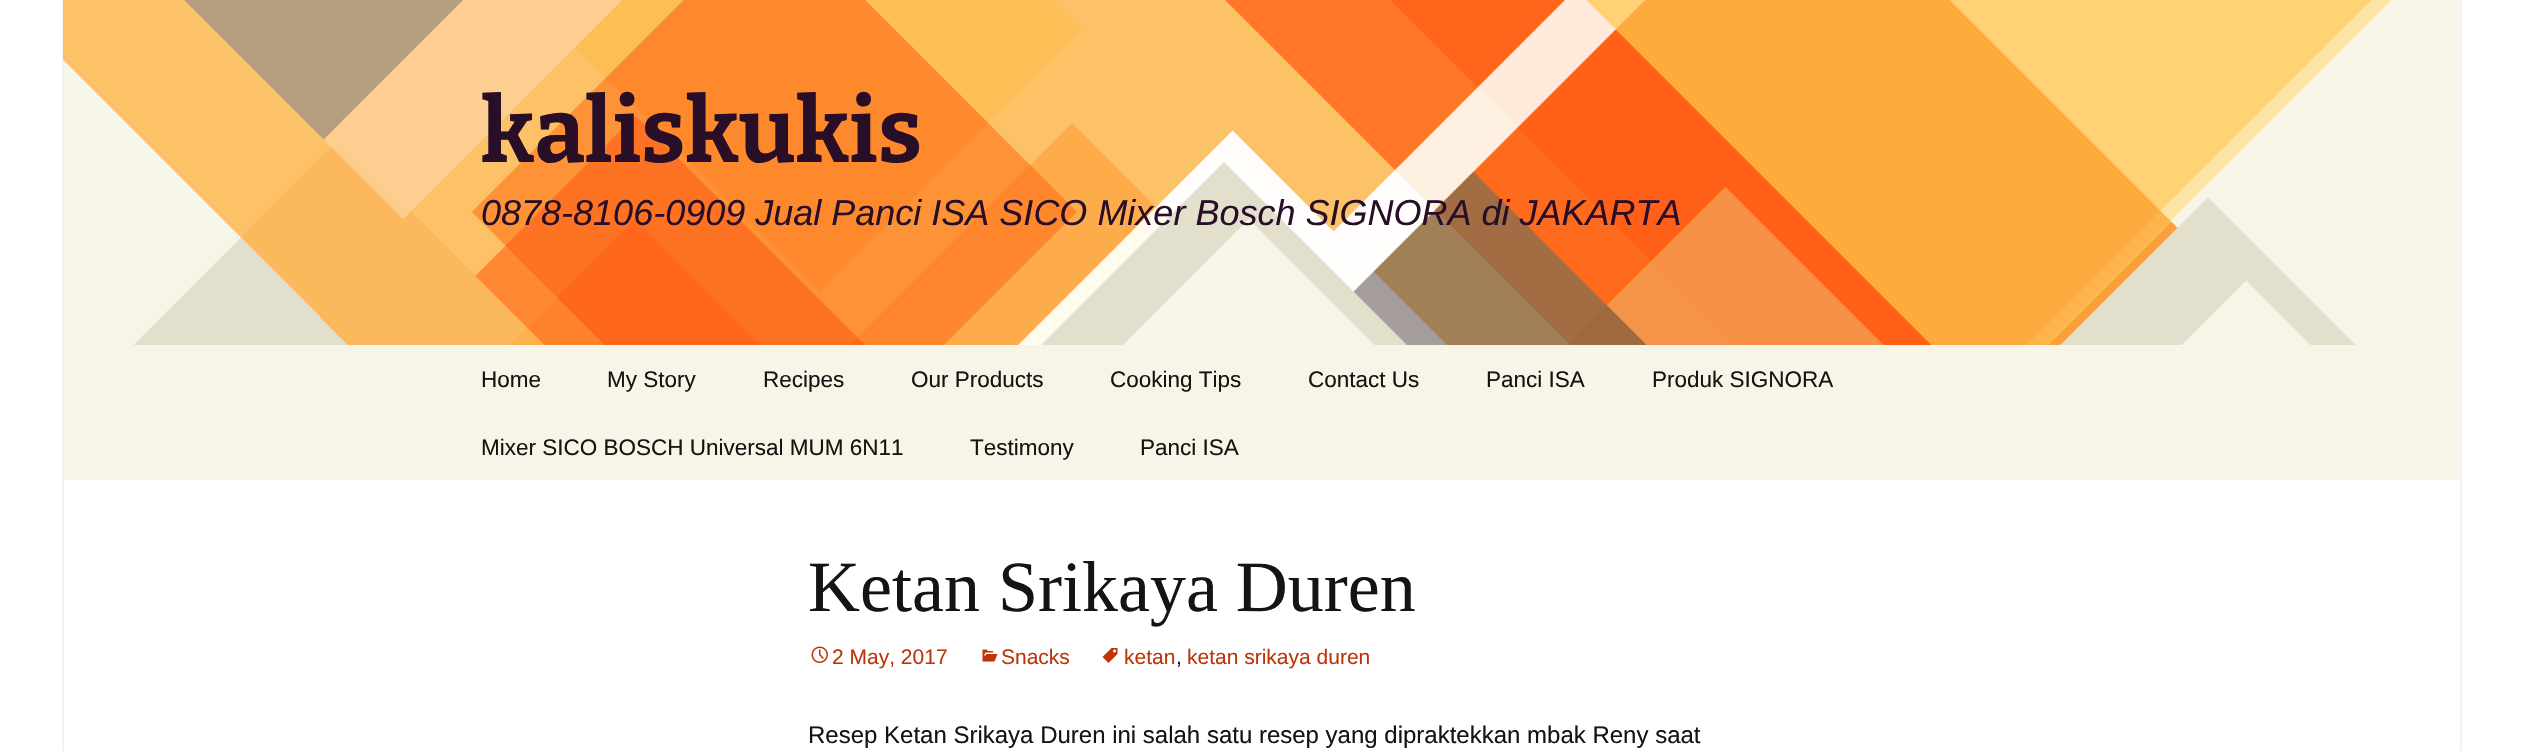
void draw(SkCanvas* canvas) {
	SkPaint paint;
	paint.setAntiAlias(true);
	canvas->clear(0xffffffff);
	paint.setColor(0xfff2f2f2);
	canvas->drawRect(SkRect::MakeXYWH(2460, 0, 2, 751), paint);
	canvas->drawRect(SkRect::MakeXYWH(62, 0, 2, 751), paint);
	canvas->drawImageRect(SkImages::DeferredFromEncodedData(SkData::MakeFromFileName("img1.png")), SkRect::MakeXYWH(63, 0, 2397, 345), SkSamplingOptions());
	SkFont f1(fontMgr->matchFamilyStyle("Bitter", SkFontStyle(100, SkFontStyle::kNormal_Width, SkFontStyle::kUpright_Slant)), 90);
	f1.setSubpixel(true);
	paint.setColor(0xff280f27);
	canvas->drawString("kaliskukis", 481, 162, f1, paint);
	SkFont f2(fontMgr->matchFamilyStyle("Liberation Sans", SkFontStyle::Italic()), 36);
	f2.setSubpixel(true);
	canvas->drawString("0878-8106-0909 Jual Panci ISA SICO Mixer Bosch SIGNORA di JAKARTA", 481, 225, f2, paint);
	paint.setColor(0xfff7f5e7);
	canvas->drawRect(SkRect::MakeXYWH(63, 345, 2397, 135), paint);
	SkFont f3(fontMgr->matchFamilyStyle("Liberation Sans", SkFontStyle::Normal()), 22.5);
	f3.setSubpixel(true);
	paint.setColor(0xff141412);
	canvas->drawString("Home", 481, 387, f3, paint);
	canvas->drawString("My Story", 607, 387, f3, paint);
	canvas->drawString("Recipes", 763, 387, f3, paint);
	canvas->drawString("Our Products", 911, 387, f3, paint);
	canvas->drawString("Cooking Tips", 1110, 387, f3, paint);
	canvas->drawString("Contact Us", 1308, 387, f3, paint);
	canvas->drawString("Panci ISA", 1486, 387, f3, paint);
	canvas->drawString("Produk SIGNORA", 1652, 387, f3, paint);
	canvas->drawString("Mixer SICO BOSCH Universal MUM 6N11", 481, 455, f3, paint);
	canvas->drawString("Testimony", 970, 455, f3, paint);
	canvas->drawString("Panci ISA", 1140, 455, f3, paint);
	SkFont f4(fontMgr->matchFamilyStyle("Liberation Serif", SkFontStyle::Normal()), 72);
	f4.setSubpixel(true);
	canvas->drawString("Ketan Srikaya Duren", 808, 611, f4, paint);
	canvas->drawImageRect(SkImages::DeferredFromEncodedData(SkData::MakeFromFileName("img2.png")), SkRect::MakeXYWH(811, 646, 17, 17), SkSamplingOptions());
	SkFont f5(fontMgr->matchFamilyStyle("Liberation Sans", SkFontStyle::Normal()), 21);
	f5.setSubpixel(true);
	paint.setColor(0xffbc360a);
	canvas->drawString("2 May, 2017", 832, 664, f5, paint);
	canvas->drawImageRect(SkImages::DeferredFromEncodedData(SkData::MakeFromFileName("img3.png")), SkRect::MakeXYWH(982, 649, 16, 13), SkSamplingOptions());
	canvas->drawString("Snacks", 1001, 664, f5, paint);
	canvas->drawImageRect(SkImages::DeferredFromEncodedData(SkData::MakeFromFileName("img4.png")), SkRect::MakeXYWH(1102, 648, 16, 15), SkSamplingOptions());
	canvas->drawString("ketan", 1124, 664, f5, paint);
	paint.setColor(0xff141412);
	canvas->drawString(",", 1176, 664, f5, paint);
	paint.setColor(0xffbc360a);
	canvas->drawString("ketan srikaya duren", 1187, 664, f5, paint);
	SkFont f6(fontMgr->matchFamilyStyle("Liberation Sans", SkFontStyle::Normal()), 24);
	f6.setSubpixel(true);
	paint.setColor(0xff141412);
	canvas->drawString("Resep Ketan Srikaya Duren ini salah satu resep yang dipraktekkan mbak Reny saat", 808, 743, f6, paint);
}
